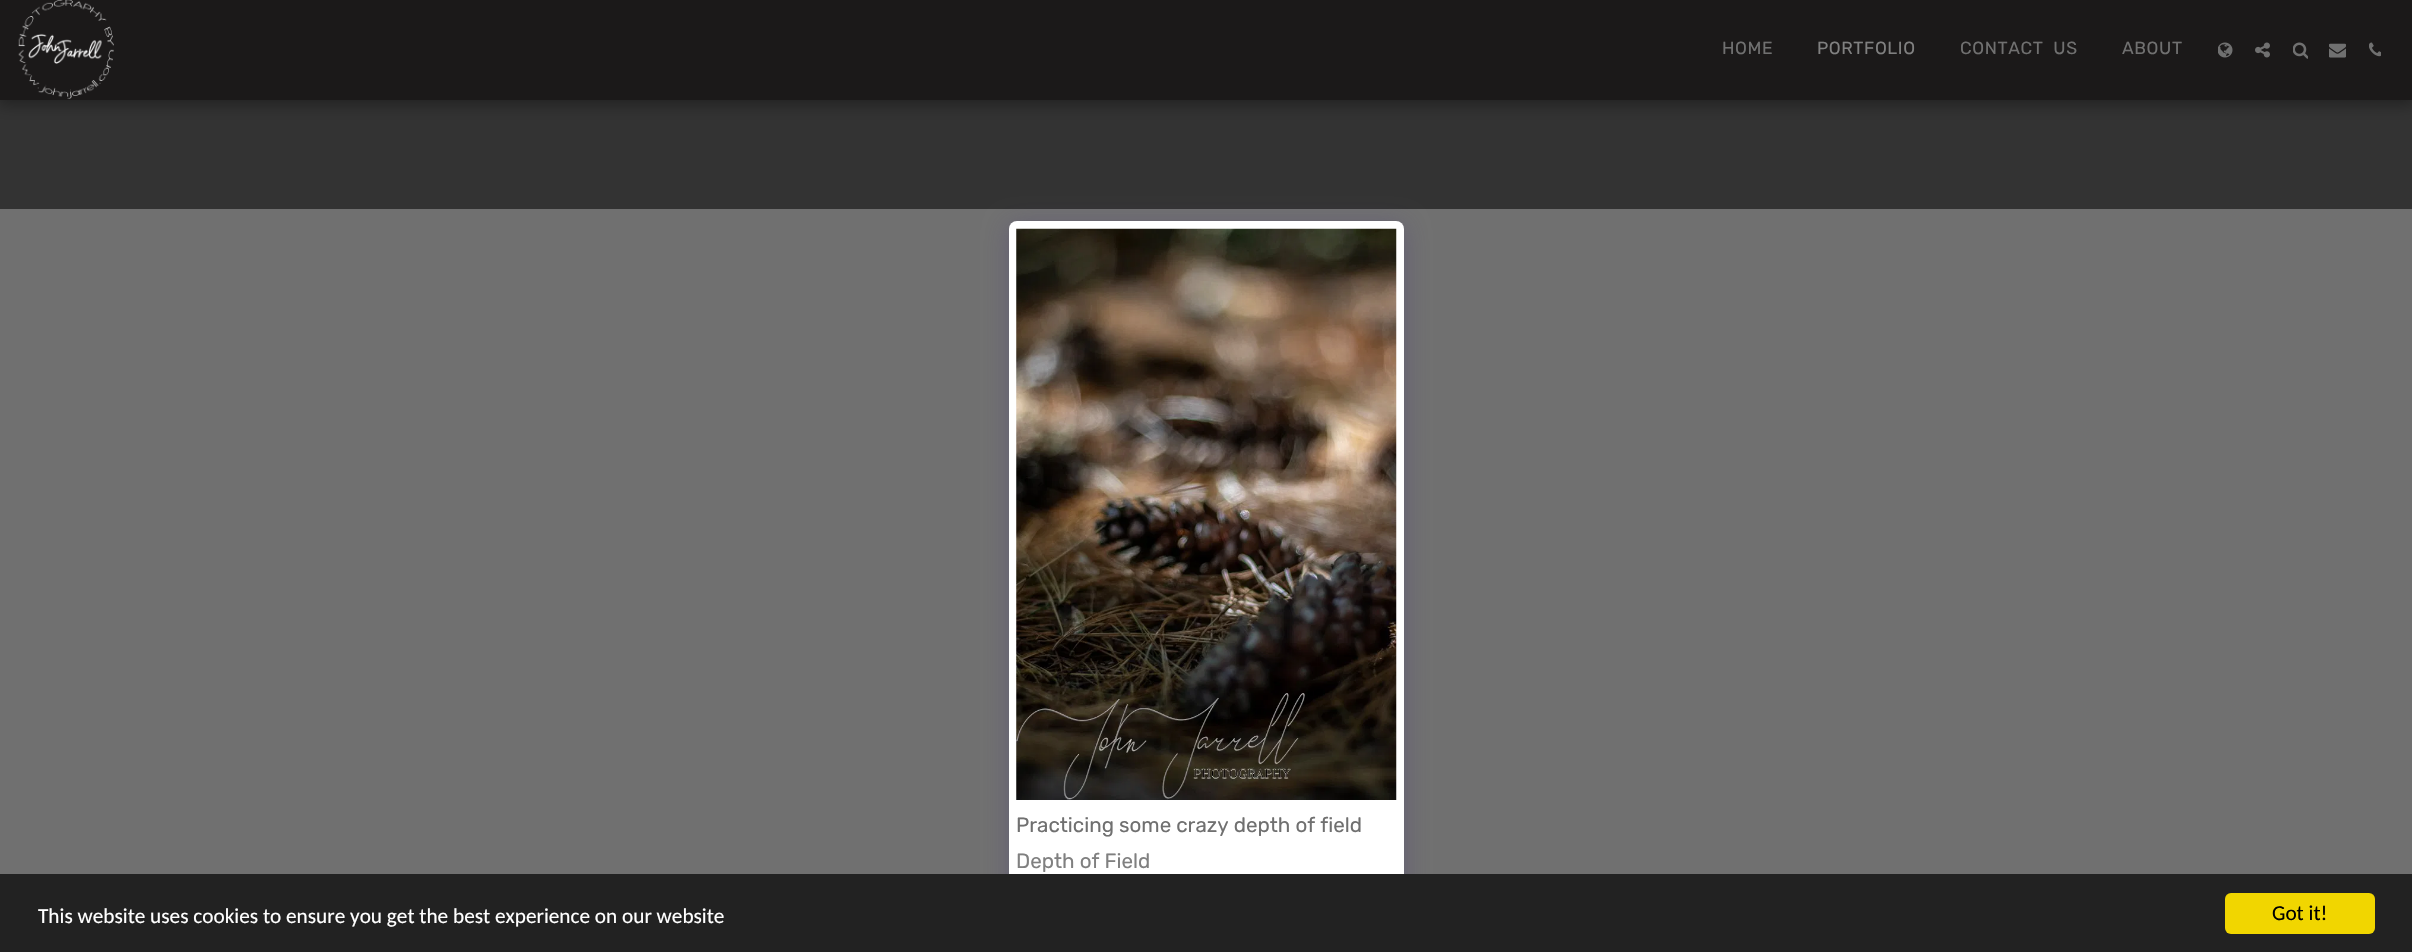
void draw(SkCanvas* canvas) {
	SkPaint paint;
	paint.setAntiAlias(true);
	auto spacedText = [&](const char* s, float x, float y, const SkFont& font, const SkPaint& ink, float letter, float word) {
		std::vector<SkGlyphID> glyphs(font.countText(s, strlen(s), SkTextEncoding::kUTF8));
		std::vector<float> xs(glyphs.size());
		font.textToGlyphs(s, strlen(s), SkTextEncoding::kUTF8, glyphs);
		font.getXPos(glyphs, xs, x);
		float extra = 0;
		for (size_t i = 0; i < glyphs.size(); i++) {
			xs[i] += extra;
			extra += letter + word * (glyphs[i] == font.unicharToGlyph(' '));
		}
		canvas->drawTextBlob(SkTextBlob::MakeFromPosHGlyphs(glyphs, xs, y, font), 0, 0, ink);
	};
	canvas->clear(0xff707070);
	paint.setColor(0xff333333);
	canvas->drawRect(SkRect::MakeXYWH(0, 100, 2412, 109), paint);
	paint.setColor(0x59000000);
	paint.setMaskFilter(SkMaskFilter::MakeBlur(kNormal_SkBlurStyle, 7.5));
	canvas->drawRect(SkRect::MakeXYWH(-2, 0, 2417, 105), paint);
	paint.setMaskFilter(nullptr);
	paint.setColor(0xff1b1919);
	canvas->drawRect(SkRect::MakeXYWH(0, 0, 2412, 100), paint);
	canvas->drawImageRect(SkImages::DeferredFromEncodedData(SkData::MakeFromFileName("img1.png")), SkRect::MakeXYWH(18, 0, 96, 99), SkSamplingOptions());
	SkFont f1(fontMgr->matchFamilyStyle("Rubik", SkFontStyle::Normal()), 17.5);
	f1.setSubpixel(true);
	paint.setColor(0xff707070);
	spacedText("HOME", 1722, 54, f1, paint, 0.6, 0);
	paint.setColor(0xff808080);
	spacedText("PORTFOLIO", 1817, 54, f1, paint, 0.6, 0);
	paint.setColor(0xff707070);
	spacedText("CONTACT  US", 1960, 54, f1, paint, 0.6, 0);
	spacedText("ABOUT", 2122, 54, f1, paint, 0.6, 0);
	canvas->drawImageRect(SkImages::DeferredFromEncodedData(SkData::MakeFromFileName("img2.png")), SkRect::MakeXYWH(2218, 42, 15, 16), SkSamplingOptions());
	canvas->drawImageRect(SkImages::DeferredFromEncodedData(SkData::MakeFromFileName("img3.png")), SkRect::MakeXYWH(2255, 42, 15, 16), SkSamplingOptions());
	canvas->drawImageRect(SkImages::DeferredFromEncodedData(SkData::MakeFromFileName("img4.png")), SkRect::MakeXYWH(2293, 42, 15, 17), SkSamplingOptions());
	canvas->drawImageRect(SkImages::DeferredFromEncodedData(SkData::MakeFromFileName("img5.png")), SkRect::MakeXYWH(2329, 43, 17, 15), SkSamplingOptions());
	canvas->drawImageRect(SkImages::DeferredFromEncodedData(SkData::MakeFromFileName("img6.png")), SkRect::MakeXYWH(2369, 42, 12, 15), SkSamplingOptions());
	paint.setColor(0x664d3f7a);
	paint.setMaskFilter(SkMaskFilter::MakeBlur(kNormal_SkBlurStyle, 12.5));
	canvas->drawRoundRect(SkRect::MakeXYWH(1009, 225, 395, 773), 8, 8, paint);
	paint.setMaskFilter(nullptr);
	paint.setColor(0xffffffff);
	canvas->drawRoundRect(SkRect::MakeXYWH(1009, 221, 395, 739), 8, 8, paint);
	canvas->drawImageRect(SkImages::DeferredFromEncodedData(SkData::MakeFromFileName("img7.png")), SkRect::MakeXYWH(1016, 228, 381, 572), SkSamplingOptions());
	SkFont f2(fontMgr->matchFamilyStyle("Rubik", SkFontStyle::Normal()), 20.6);
	f2.setSubpixel(true);
	paint.setColor(0xff707070);
	canvas->drawString("Practicing some crazy depth of field", 1016, 832, f2, paint);
	paint.setColor(0xff808080);
	canvas->drawString("Depth of Field", 1016, 868, f2, paint);
	paint.setColor(0xff222222);
	canvas->drawRect(SkRect::MakeXYWH(0, 874, 2412, 78), paint);
	SkFont f3(fontMgr->matchFamilyStyle("Carlito", SkFontStyle::Normal()), 21.25);
	f3.setSubpixel(true);
	paint.setColor(0xffffffff);
	canvas->drawString("This website uses cookies to ensure you get the best experience on our website", 38, 923, f3, paint);
	paint.setColor(0xfff1d600);
	canvas->drawRoundRect(SkRect::MakeXYWH(2225, 893, 150, 41), 6, 6, paint);
	paint.setColor(0xff000000);
	canvas->drawString("Got it!", 2272, 920, f3, paint);
}
